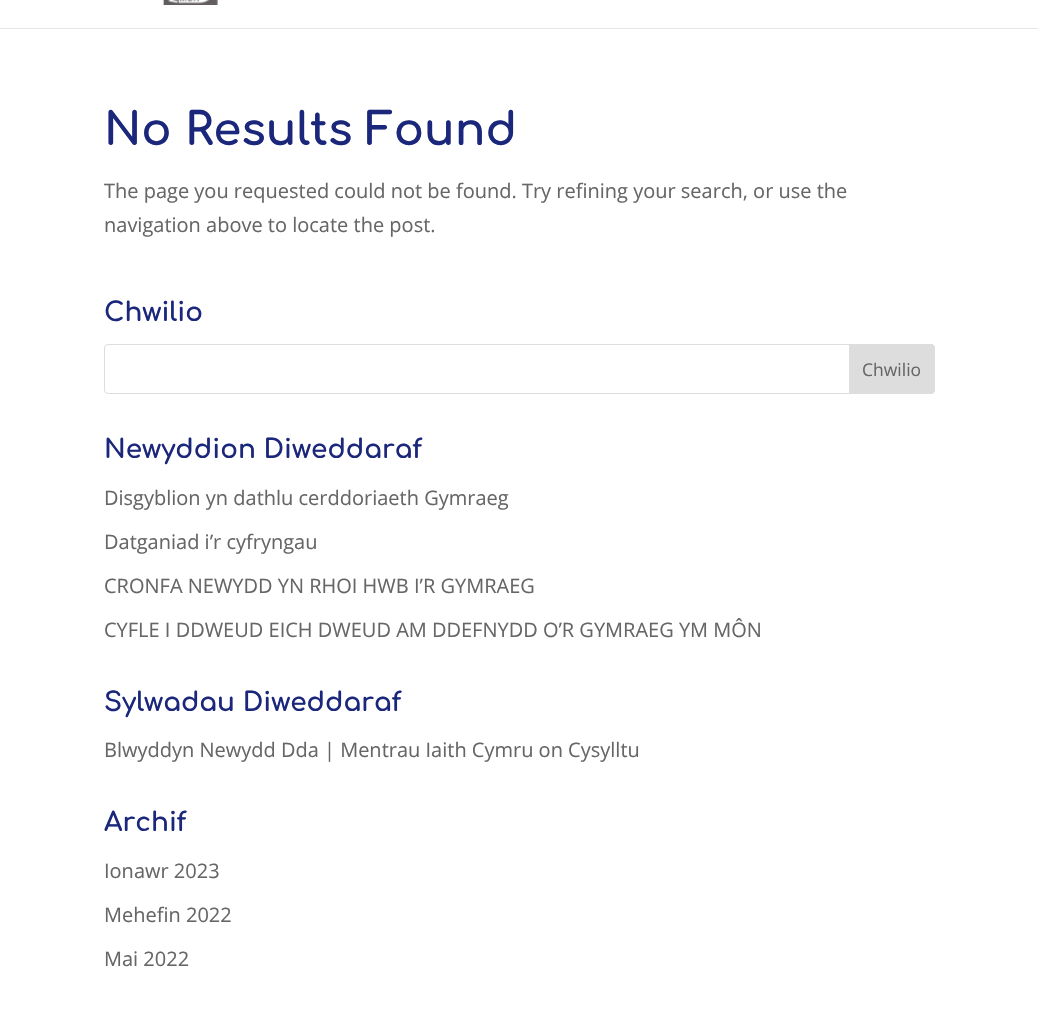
void draw(SkCanvas* canvas) {
	SkPaint paint;
	paint.setAntiAlias(true);
	auto svgPath = [&](const char* data, bool evenOdd = false) {
		SkPath result = *SkParsePath::FromSVGString(data);
		if (evenOdd) result.setFillType(SkPathFillType::kEvenOdd);
		return result;
	};
	canvas->clear(0xffffffff);
	paint.setColor(0xffe6e6e6);
	canvas->drawPath(svgPath("M0 28V29H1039V-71V28Z"), paint);
	canvas->drawImageRect(SkImages::DeferredFromEncodedData(SkData::MakeFromFileName("img1.png")), SkRect::MakeXYWH(162, 0, 56, 5), SkSamplingOptions());
	SkFont f1(fontMgr->matchFamilyStyle("Comfortaa", SkFontStyle::Bold()), 45);
	f1.setSubpixel(true);
	paint.setColor(0xff1b277b);
	canvas->drawString("No Results Found", 104, 145, f1, paint);
	SkFont f2(fontMgr->matchFamilyStyle("Open Sans", SkFontStyle::Normal()), 20);
	f2.setSubpixel(true);
	paint.setColor(0xff666666);
	canvas->drawString("The page you requested could not be found. Try refining your search, or use the", 104, 198, f2, paint);
	canvas->drawString("navigation above to locate the post.", 104, 232, f2, paint);
	SkFont f3(fontMgr->matchFamilyStyle("Comfortaa", SkFontStyle::Bold()), 26.25);
	f3.setSubpixel(true);
	paint.setColor(0xff1b277b);
	canvas->drawString("Chwilio", 104, 321, f3, paint);
	paint.setStroke(true);
	paint.setStrokeWidth(1);
	paint.setColor(0xffdddddd);
	canvas->drawRoundRect(SkRect::MakeXYWH(104.5, 344.5, 830, 49), 3.5, 3.5, paint);
	paint.setStroke(false);
	canvas->drawPath(svgPath("M849.5 344.5H931C933 344.5 934.5 346 934.5 348V390C934.5 392 933 393.5 931 393.5H849.5Z"), paint);
	paint.setStroke(true);
	canvas->drawPath(svgPath("M849.5 344.5H931C933 344.5 934.5 346 934.5 348V390C934.5 392 933 393.5 931 393.5H849.5Z"), paint);
	SkFont f4(fontMgr->matchFamilyStyle("Open Sans", SkFontStyle::Normal()), 17.5);
	f4.setSubpixel(true);
	paint.setStroke(false);
	paint.setColor(0xff666666);
	canvas->drawString("Chwilio", 862, 376, f4, paint);
	paint.setColor(0xff1b277b);
	canvas->drawString("Newyddion Diweddaraf", 104, 458, f3, paint);
	paint.setColor(0xff666666);
	canvas->drawString("Disgyblion yn dathlu cerddoriaeth Gymraeg", 104, 505, f2, paint);
	canvas->drawString("Datganiad i’r cyfryngau", 104, 549, f2, paint);
	canvas->drawString("CRONFA NEWYDD YN RHOI HWB I’R GYMRAEG", 104, 593, f2, paint);
	canvas->drawString("CYFLE I DDWEUD EICH DWEUD AM DDEFNYDD O’R GYMRAEG YM MÔN", 104, 637, f2, paint);
	paint.setColor(0xff1b277b);
	canvas->drawString("Sylwadau Diweddaraf", 104, 711, f3, paint);
	paint.setColor(0xff666666);
	canvas->drawString("Blwyddyn Newydd Dda | Mentrau Iaith Cymru on Cysylltu", 104, 757, f2, paint);
	paint.setColor(0xff1b277b);
	canvas->drawString("Archif", 104, 831, f3, paint);
	paint.setColor(0xff666666);
	canvas->drawString("Ionawr 2023", 104, 878, f2, paint);
	canvas->drawString("Mehefin 2022", 104, 922, f2, paint);
	canvas->drawString("Mai 2022", 104, 966, f2, paint);
}
